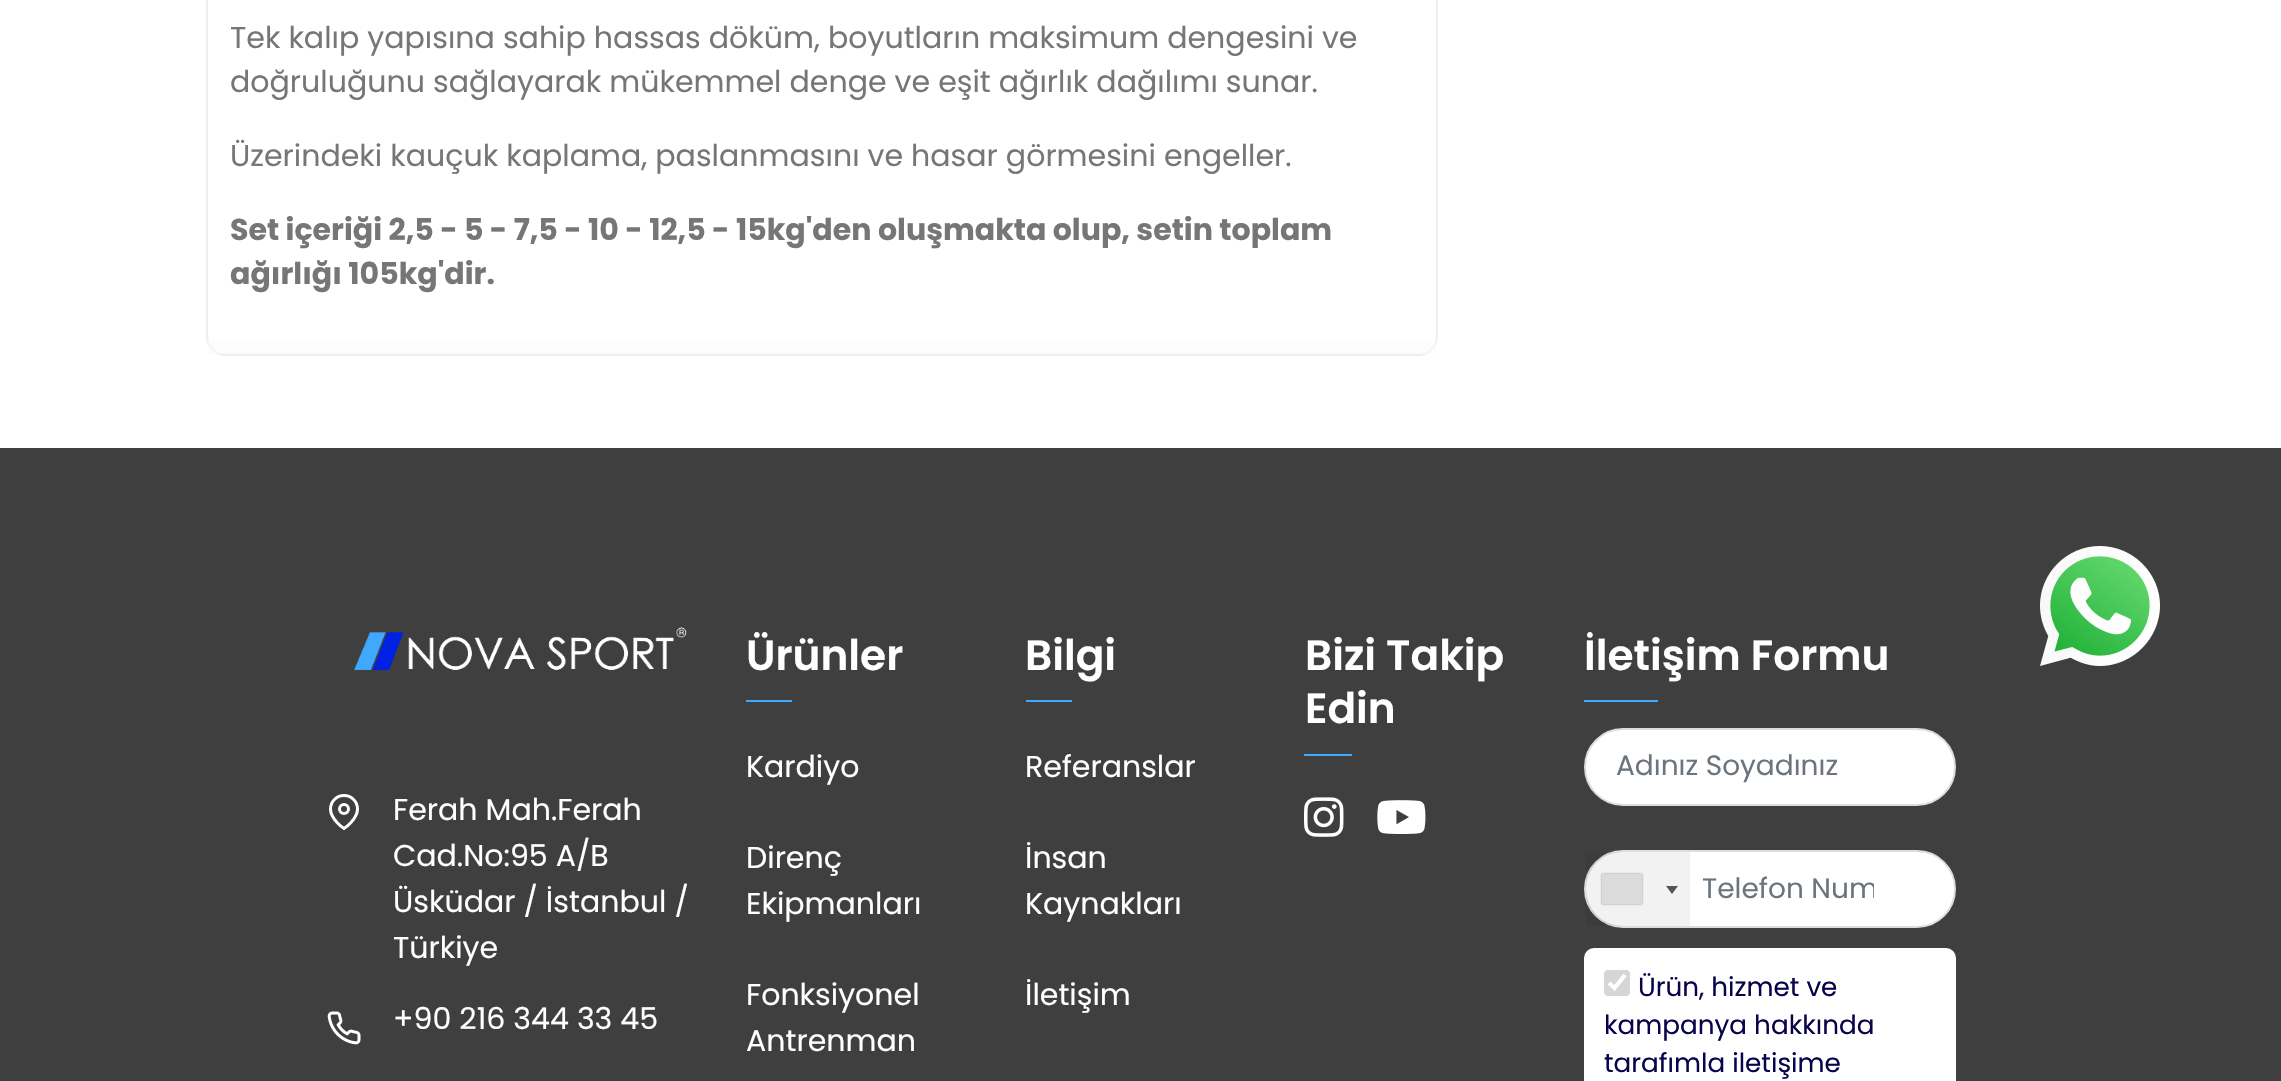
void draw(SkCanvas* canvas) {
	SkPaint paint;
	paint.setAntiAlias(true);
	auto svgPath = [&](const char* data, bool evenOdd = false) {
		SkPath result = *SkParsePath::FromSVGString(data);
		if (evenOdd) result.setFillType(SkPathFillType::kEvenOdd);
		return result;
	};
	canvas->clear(0xffffffff);
	paint.setStroke(true);
	paint.setStrokeWidth(2);
	paint.setColor(0xffeeeeee);
	canvas->drawRoundRect(SkRect::MakeXYWH(207, -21, 1230, 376), 19, 19, paint);
	paint.setStroke(false);
	paint.setColor(0x80fafafa);
	canvas->drawRect(SkRect::MakeXYWH(208, 341, 1228, 13), paint);
	SkFont f1(fontMgr->matchFamilyStyle("Poppins", SkFontStyle::Normal()), 30.05);
	f1.setSubpixel(true);
	paint.setColor(0xff767676);
	canvas->drawString("Tek kalıp yapısına sahip hassas döküm, boyutların maksimum dengesini ve", 230, 48, f1, paint);
	canvas->drawString("doğruluğunu sağlayarak mükemmel denge ve eşit ağırlık dağılımı sunar.", 230, 92, f1, paint);
	canvas->drawString("Üzerindeki kauçuk kaplama, paslanmasını ve hasar görmesini engeller.", 230, 166, f1, paint);
	SkFont f2(fontMgr->matchFamilyStyle("Poppins", SkFontStyle::Bold()), 30.05);
	f2.setSubpixel(true);
	canvas->drawString("Set içeriği 2,5 - 5 - 7,5 - 10 - 12,5 - 15kg'den oluşmakta olup, setin toplam", 230, 240, f2, paint);
	canvas->drawString("ağırlığı 105kg'dir.", 230, 284, f2, paint);
	paint.setColor(0xff3f3f3f);
	canvas->drawRect(SkRect::MakeXYWH(0, 448, 2281, 633), paint);
	canvas->drawImageRect(SkImages::DeferredFromEncodedData(SkData::MakeFromFileName("img1.png")), SkRect::MakeXYWH(2040, 546, 120, 120), SkSamplingOptions());
	SkFont f3(fontMgr->matchFamilyStyle("Poppins", SkFontStyle(600, SkFontStyle::kNormal_Width, SkFontStyle::kUpright_Slant)), 42.25);
	f3.setSubpixel(true);
	paint.setColor(0xffffffff);
	canvas->drawString("Ürünler", 746, 670, f3, paint);
	paint.setColor(0xff3ea9ff);
	canvas->drawRect(SkRect::MakeXYWH(746, 700, 46, 2), paint);
	paint.setColor(0xffffffff);
	canvas->drawString("Kardiyo", 746, 777, f1, paint);
	canvas->drawString("Direnç", 746, 868, f1, paint);
	canvas->drawString("Ekipmanları", 746, 914, f1, paint);
	canvas->drawString("Fonksiyonel", 746, 1005, f1, paint);
	canvas->drawString("Antrenman", 746, 1051, f1, paint);
	canvas->drawString("Bilgi", 1025, 670, f3, paint);
	paint.setColor(0xff3ea9ff);
	canvas->drawRect(SkRect::MakeXYWH(1026, 700, 46, 2), paint);
	paint.setColor(0xffffffff);
	canvas->drawString("Referanslar", 1025, 777, f1, paint);
	canvas->drawString("İnsan", 1025, 868, f1, paint);
	canvas->drawString("Kaynakları", 1025, 914, f1, paint);
	canvas->drawString("İletişim", 1025, 1005, f1, paint);
	canvas->drawString("Bizi Takip", 1305, 670, f3, paint);
	canvas->drawString("Edin", 1305, 723, f3, paint);
	paint.setColor(0xff3ea9ff);
	canvas->drawRect(SkRect::MakeXYWH(1304, 754, 48, 2), paint);
	canvas->drawImageRect(SkImages::DeferredFromEncodedData(SkData::MakeFromFileName("img2.png")), SkRect::MakeXYWH(1304, 797, 40, 40), SkSamplingOptions());
	canvas->drawImageRect(SkImages::DeferredFromEncodedData(SkData::MakeFromFileName("img3.png")), SkRect::MakeXYWH(1377, 800, 49, 34), SkSamplingOptions());
	paint.setColor(0xffffffff);
	canvas->drawString("İletişim Formu", 1584, 670, f3, paint);
	paint.setColor(0xff3ea9ff);
	canvas->drawRect(SkRect::MakeXYWH(1584, 700, 74, 2), paint);
	paint.setColor(0xffffffff);
	canvas->drawRoundRect(SkRect::MakeXYWH(1585, 729, 370, 76), 38, 38, paint);
	paint.setStroke(true);
	paint.setColor(0xffdddddd);
	canvas->drawRoundRect(SkRect::MakeXYWH(1585, 729, 370, 76), 38, 38, paint);
	SkFont f4(fontMgr->matchFamilyStyle("Poppins", SkFontStyle::Normal()), 28);
	f4.setSubpixel(true);
	paint.setStroke(false);
	paint.setColor(0xff6c757d);
	canvas->drawString("Adınız Soyadınız", 1616, 775, f4, paint);
	paint.setColor(0xffffffff);
	canvas->drawRoundRect(SkRect::MakeXYWH(1585, 851, 370, 76), 38, 38, paint);
	paint.setStroke(true);
	paint.setColor(0xffdddddd);
	canvas->drawRoundRect(SkRect::MakeXYWH(1585, 851, 370, 76), 38, 38, paint);
	paint.setStroke(false);
	paint.setColor(0x0d000000);
	canvas->drawRect(SkRect::MakeXYWH(1586, 852, 104, 74), paint);
	paint.setColor(0xff888888);
	paint.setMaskFilter(SkMaskFilter::MakeBlur(kNormal_SkBlurStyle, 1));
	canvas->drawRect(SkRect::MakeXYWH(1602, 874, 40, 30), paint);
	paint.setMaskFilter(nullptr);
	paint.setColor(0xffdbdbdb);
	canvas->drawRect(SkRect::MakeXYWH(1602, 874, 40, 30), paint);
	paint.setColor(0xff555555);
	canvas->drawPath(svgPath("M1666 886H1678L1672 894Z"), paint);
	canvas->save();
	canvas->clipRect(SkRect::MakeXYWH(1702, 868, 172, 42));
	paint.setColor(0xff6c757d);
	canvas->drawString("Telefon Num", 1702, 898, f4, paint);
	canvas->restore();
	paint.setColor(0xffffffff);
	canvas->drawRoundRect(SkRect::MakeXYWH(1584, 948, 372, 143), 10, 10, paint);
	paint.setColor(0xffd6d6d6);
	canvas->drawRoundRect(SkRect::MakeXYWH(1604, 970, 26, 26), 4, 4, paint);
	paint.setStroke(true);
	paint.setStrokeWidth(4.2);
	paint.setColor(0xffffffff);
	canvas->drawPath(svgPath("M1609 983L1614.5 988L1625 975"), paint);
	SkFont f5(fontMgr->matchFamilyStyle("Poppins", SkFontStyle::Normal()), 26.25);
	f5.setSubpixel(true);
	paint.setStroke(false);
	paint.setColor(0xff08034b);
	canvas->drawString("Ürün, hizmet ve", 1638, 996, f5, paint);
	canvas->drawString("kampanya hakkında", 1604, 1034, f5, paint);
	canvas->drawString("tarafımla iletişime", 1604, 1072, f5, paint);
	canvas->drawImageRect(SkImages::DeferredFromEncodedData(SkData::MakeFromFileName("img4.png")), SkRect::MakeXYWH(354, 627, 333, 44), SkSamplingOptions());
	paint.setStroke(true);
	paint.setStrokeWidth(3);
	paint.setStrokeCap(SkPaint::kRound_Cap);
	paint.setStrokeJoin(SkPaint::kRound_Join);
	paint.setColor(0xffffffff);
	canvas->drawPath(svgPath("M357.5 809C357.5 819.5 344 828.5 344 828.5C344 828.5 330.5 819.5 330.5 809C330.5 801.5 336.5 795.5 344 795.5C351.5 795.5 357.5 801.5 357.5 809Z"), paint);
	paint.setStrokeCap(SkPaint::kButt_Cap);
	paint.setStrokeJoin(SkPaint::kMiter_Join);
	canvas->drawCircle(344, 809, 4.5, paint);
	paint.setStroke(false);
	canvas->drawString("Ferah Mah.Ferah", 393, 820, f1, paint);
	canvas->drawString("Cad.No:95 A/B", 393, 866, f1, paint);
	canvas->drawString("Üsküdar / İstanbul /", 393, 912, f1, paint);
	canvas->drawString("Türkiye", 393, 958, f1, paint);
	canvas->drawImageRect(SkImages::DeferredFromEncodedData(SkData::MakeFromFileName("img5.png")), SkRect::MakeXYWH(327, 1011, 34, 34), SkSamplingOptions());
	canvas->drawString("+90 216 344 33 45", 393, 1029, f1, paint);
}
